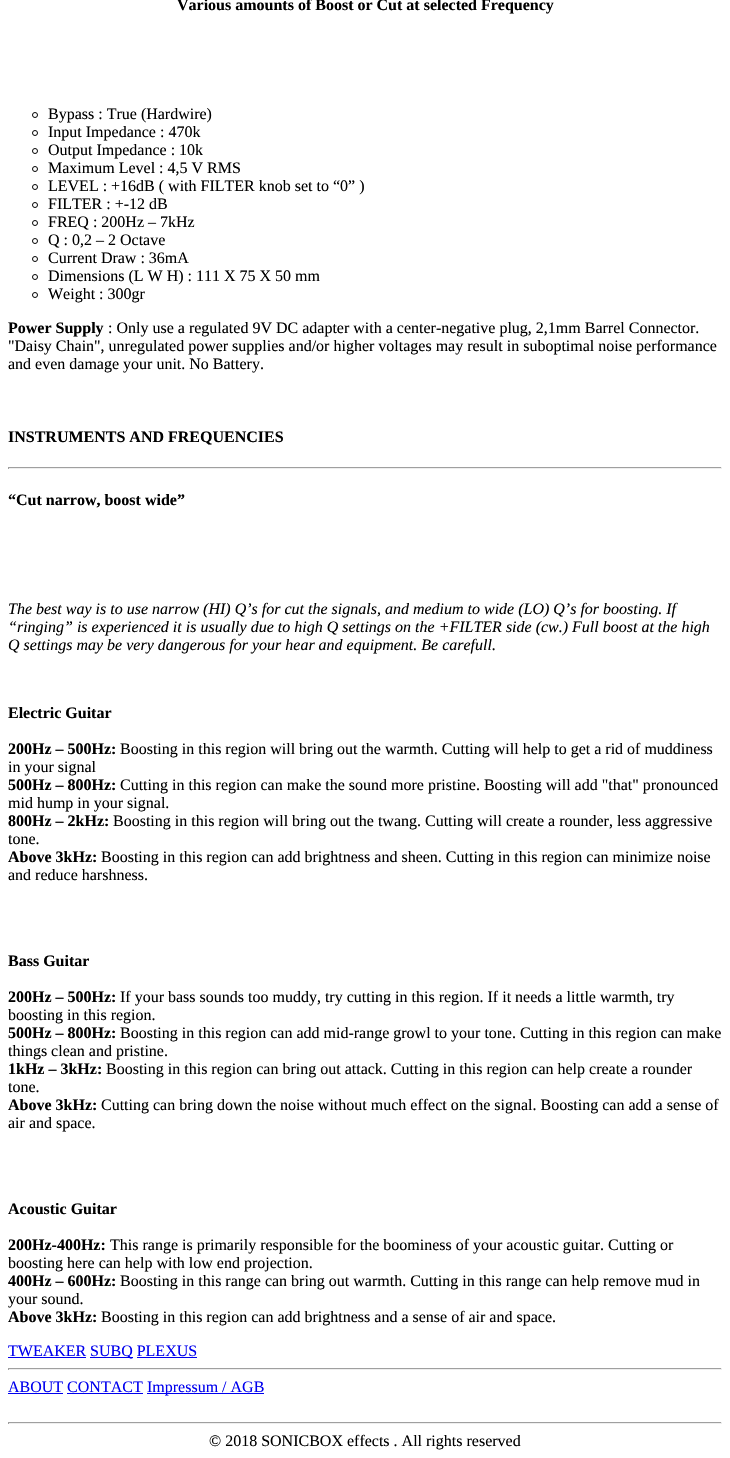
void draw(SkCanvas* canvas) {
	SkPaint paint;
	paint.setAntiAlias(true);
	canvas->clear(0xffffffff);
	SkFont f1(fontMgr->matchFamilyStyle("Liberation Serif", SkFontStyle::Bold()), 16);
	f1.setSubpixel(true);
	paint.setColor(0xff000000);
	canvas->drawString("Various amounts of Boost or Cut at selected Frequency", 177, 10, f1, paint);
	paint.setStroke(true);
	paint.setStrokeWidth(1);
	canvas->drawCircle(35, 115, 2.5, paint);
	SkFont f2(fontMgr->matchFamilyStyle("Liberation Serif", SkFontStyle::Normal()), 16);
	f2.setSubpixel(true);
	paint.setStroke(false);
	canvas->drawString("Bypass : True (Hardwire)", 48, 119, f2, paint);
	paint.setStroke(true);
	canvas->drawCircle(35, 133, 2.5, paint);
	paint.setStroke(false);
	canvas->drawString("Input Impedance : 470k", 48, 137, f2, paint);
	paint.setStroke(true);
	canvas->drawCircle(35, 151, 2.5, paint);
	paint.setStroke(false);
	canvas->drawString("Output Impedance : 10k", 48, 155, f2, paint);
	paint.setStroke(true);
	canvas->drawCircle(35, 169, 2.5, paint);
	paint.setStroke(false);
	canvas->drawString("Maximum Level : 4,5 V RMS", 48, 173, f2, paint);
	paint.setStroke(true);
	canvas->drawCircle(35, 187, 2.5, paint);
	paint.setStroke(false);
	canvas->drawString("LEVEL : +16dB ( with FILTER knob set to “0” )", 48, 191, f2, paint);
	paint.setStroke(true);
	canvas->drawCircle(35, 205, 2.5, paint);
	paint.setStroke(false);
	canvas->drawString("FILTER : +-12 dB", 48, 209, f2, paint);
	paint.setStroke(true);
	canvas->drawCircle(35, 223, 2.5, paint);
	paint.setStroke(false);
	canvas->drawString("FREQ : 200Hz – 7kHz", 48, 227, f2, paint);
	paint.setStroke(true);
	canvas->drawCircle(35, 241, 2.5, paint);
	paint.setStroke(false);
	canvas->drawString("Q : 0,2 – 2 Octave", 48, 245, f2, paint);
	paint.setStroke(true);
	canvas->drawCircle(35, 259, 2.5, paint);
	paint.setStroke(false);
	canvas->drawString("Current Draw : 36mA", 48, 263, f2, paint);
	paint.setStroke(true);
	canvas->drawCircle(35, 277, 2.5, paint);
	paint.setStroke(false);
	canvas->drawString("Dimensions (L W H) : 111 X 75 X 50 mm", 48, 281, f2, paint);
	paint.setStroke(true);
	canvas->drawCircle(35, 295, 2.5, paint);
	paint.setStroke(false);
	canvas->drawString("Weight : 300gr", 48, 299, f2, paint);
	canvas->drawString("Power Supply", 8, 333, f1, paint);
	canvas->drawString(": Only use a regulated 9V DC adapter with a center-negative plug, 2,1mm Barrel Connector.", 108, 333, f2, paint);
	canvas->drawString("\"Daisy Chain\", unregulated power supplies and/or higher voltages may result in suboptimal noise performance", 8, 351, f2, paint);
	canvas->drawString("and even damage your unit. No Battery.", 8, 369, f2, paint);
	canvas->drawString("INSTRUMENTS AND FREQUENCIES", 8, 442, f1, paint);
	paint.setColor(0xff9f9f9f);
	canvas->drawRect(SkRect::MakeXYWH(8, 467, 714, 1), paint);
	paint.setColor(0xffeeeeee);
	canvas->drawRect(SkRect::MakeXYWH(721, 467, 1, 2), paint);
	canvas->drawRect(SkRect::MakeXYWH(8, 468, 714, 1), paint);
	paint.setColor(0xff9f9f9f);
	canvas->drawRect(SkRect::MakeXYWH(8, 467, 1, 2), paint);
	paint.setColor(0xff000000);
	canvas->drawString("“Cut narrow, boost wide”", 8, 505, f1, paint);
	SkFont f3(fontMgr->matchFamilyStyle("Liberation Serif", SkFontStyle::Italic()), 16);
	f3.setSubpixel(true);
	canvas->drawString("The best way is to use narrow (HI) Q’s for cut the signals, and medium to wide (LO) Q’s for boosting. If", 8, 614, f3, paint);
	canvas->drawString("“ringing” is experienced it is usually due to high Q settings on the +FILTER side (cw.) Full boost at the high", 8, 632, f3, paint);
	canvas->drawString("Q settings may be very dangerous for your hear and equipment. Be carefull.", 8, 650, f3, paint);
	canvas->drawString("Electric Guitar", 8, 718, f1, paint);
	canvas->drawString("200Hz – 500Hz:", 8, 754, f1, paint);
	canvas->drawString("Boosting in this region will bring out the warmth. Cutting will help to get a rid of muddiness", 120, 754, f2, paint);
	canvas->drawString("in your signal", 8, 772, f2, paint);
	canvas->drawString("500Hz – 800Hz:", 8, 790, f1, paint);
	canvas->drawString("Cutting in this region can make the sound more pristine. Boosting will add \"that\" pronounced", 120, 790, f2, paint);
	canvas->drawString("mid hump in your signal.", 8, 808, f2, paint);
	canvas->drawString("800Hz – 2kHz:", 8, 826, f1, paint);
	canvas->drawString("Boosting in this region will bring out the twang. Cutting will create a rounder, less aggressive", 113, 826, f2, paint);
	canvas->drawString("tone.", 8, 844, f2, paint);
	canvas->drawString("Above 3kHz:", 8, 862, f1, paint);
	canvas->drawString("Boosting in this region can add brightness and sheen. Cutting in this region can minimize noise", 101, 862, f2, paint);
	canvas->drawString("and reduce harshness.", 8, 880, f2, paint);
	canvas->drawString("Bass Guitar", 8, 966, f1, paint);
	canvas->drawString("200Hz – 500Hz:", 8, 1002, f1, paint);
	canvas->drawString("If your bass sounds too muddy, try cutting in this region. If it needs a little warmth, try", 120, 1002, f2, paint);
	canvas->drawString("boosting in this region.", 8, 1020, f2, paint);
	canvas->drawString("500Hz – 800Hz:", 8, 1038, f1, paint);
	canvas->drawString("Boosting in this region can add mid-range growl to your tone. Cutting in this region can make", 120, 1038, f2, paint);
	canvas->drawString("things clean and pristine.", 8, 1056, f2, paint);
	canvas->drawString("1kHz – 3kHz:", 8, 1074, f1, paint);
	canvas->drawString("Boosting in this region can bring out attack. Cutting in this region can help create a rounder", 106, 1074, f2, paint);
	canvas->drawString("tone.", 8, 1092, f2, paint);
	canvas->drawString("Above 3kHz:", 8, 1110, f1, paint);
	canvas->drawString("Cutting can bring down the noise without much effect on the signal. Boosting can add a sense of", 101, 1110, f2, paint);
	canvas->drawString("air and space.", 8, 1128, f2, paint);
	canvas->drawString("Acoustic Guitar", 8, 1214, f1, paint);
	canvas->drawString("200Hz-400Hz:", 8, 1250, f1, paint);
	canvas->drawString("This range is primarily responsible for the boominess of your acoustic guitar. Cutting or", 110, 1250, f2, paint);
	canvas->drawString("boosting here can help with low end projection.", 8, 1268, f2, paint);
	canvas->drawString("400Hz – 600Hz:", 8, 1286, f1, paint);
	canvas->drawString("Boosting in this range can bring out warmth. Cutting in this range can help remove mud in", 120, 1286, f2, paint);
	canvas->drawString("your sound.", 8, 1304, f2, paint);
	canvas->drawString("Above 3kHz:", 8, 1322, f1, paint);
	canvas->drawString("Boosting in this region can add brightness and a sense of air and space.", 101, 1322, f2, paint);
	paint.setColor(0xff0000ee);
	canvas->drawString("TWEAKER", 8, 1356, f2, paint);
	canvas->drawRect(SkRect::MakeXYWH(8, 1357, 78, 1), paint);
	canvas->drawRect(SkRect::MakeXYWH(90, 1357, 43, 1), paint);
	canvas->drawString("SUBQ PLEXUS", 90, 1356, f2, paint);
	canvas->drawRect(SkRect::MakeXYWH(137, 1357, 60, 1), paint);
	paint.setColor(0xff9f9f9f);
	canvas->drawRect(SkRect::MakeXYWH(8, 1368, 714, 1), paint);
	paint.setColor(0xffeeeeee);
	canvas->drawRect(SkRect::MakeXYWH(721, 1368, 1, 2), paint);
	canvas->drawRect(SkRect::MakeXYWH(8, 1369, 714, 1), paint);
	paint.setColor(0xff9f9f9f);
	canvas->drawRect(SkRect::MakeXYWH(8, 1368, 1, 2), paint);
	paint.setColor(0xff0000ee);
	canvas->drawString("ABOUT CONTACT", 8, 1392, f2, paint);
	canvas->drawRect(SkRect::MakeXYWH(8, 1393, 55, 1), paint);
	canvas->drawRect(SkRect::MakeXYWH(147, 1393, 117, 1), paint);
	canvas->drawString("Impressum / AGB", 147, 1392, f2, paint);
	canvas->drawRect(SkRect::MakeXYWH(67, 1393, 76, 1), paint);
	paint.setColor(0xff9f9f9f);
	canvas->drawRect(SkRect::MakeXYWH(8, 1422, 714, 1), paint);
	paint.setColor(0xffeeeeee);
	canvas->drawRect(SkRect::MakeXYWH(721, 1422, 1, 2), paint);
	canvas->drawRect(SkRect::MakeXYWH(8, 1423, 714, 1), paint);
	paint.setColor(0xff9f9f9f);
	canvas->drawRect(SkRect::MakeXYWH(8, 1422, 1, 2), paint);
	paint.setColor(0xff000000);
	canvas->drawString("© 2018 SONICBOX effects . All rights reserved", 209, 1446, f2, paint);
}
